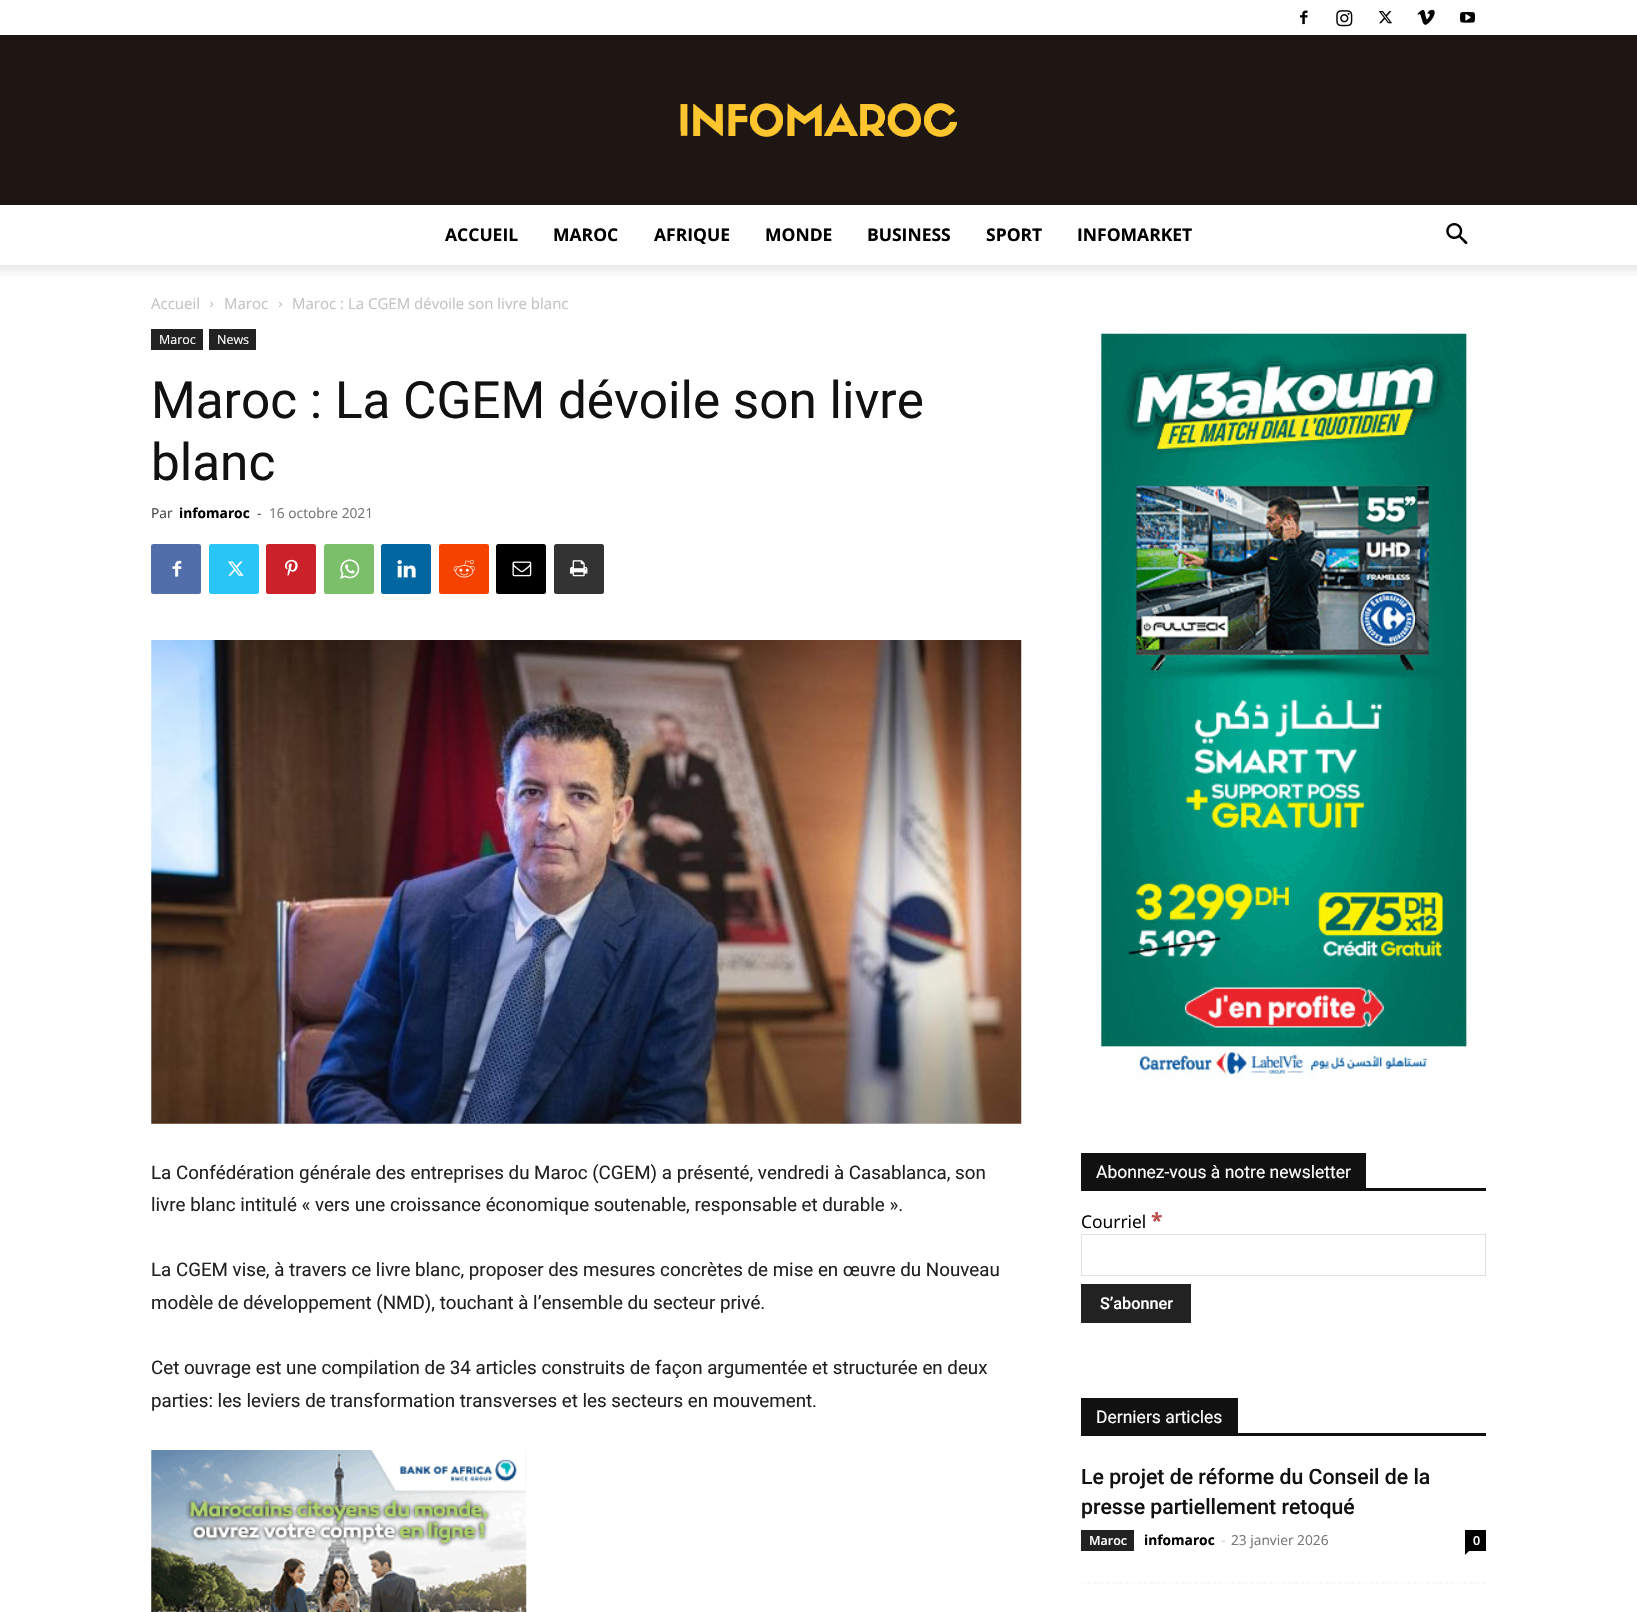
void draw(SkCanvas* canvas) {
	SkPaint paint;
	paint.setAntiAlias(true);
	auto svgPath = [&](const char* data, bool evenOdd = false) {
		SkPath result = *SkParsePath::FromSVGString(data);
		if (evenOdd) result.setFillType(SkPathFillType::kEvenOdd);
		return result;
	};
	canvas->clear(0xffffffff);
	canvas->drawImageRect(SkImages::DeferredFromEncodedData(SkData::MakeFromFileName("img1.png")), SkRect::MakeXYWH(1300, 10, 8, 15), SkSamplingOptions());
	canvas->drawImageRect(SkImages::DeferredFromEncodedData(SkData::MakeFromFileName("img2.png")), SkRect::MakeXYWH(1336, 10, 17, 17), SkSamplingOptions());
	canvas->drawImageRect(SkImages::DeferredFromEncodedData(SkData::MakeFromFileName("img3.png")), SkRect::MakeXYWH(1378, 11, 15, 13), SkSamplingOptions());
	canvas->drawImageRect(SkImages::DeferredFromEncodedData(SkData::MakeFromFileName("img4.png")), SkRect::MakeXYWH(1417, 9, 18, 16), SkSamplingOptions());
	canvas->drawImageRect(SkImages::DeferredFromEncodedData(SkData::MakeFromFileName("img5.png")), SkRect::MakeXYWH(1460, 12, 15, 11), SkSamplingOptions());
	paint.setColor(0xff1e1612);
	canvas->drawRect(SkRect::MakeXYWH(0, 35, 1637, 170), paint);
	canvas->drawImageRect(SkImages::DeferredFromEncodedData(SkData::MakeFromFileName("img6.png")), SkRect::MakeXYWH(680, 103, 277, 34), SkSamplingOptions());
	SkFont f1(fontMgr->matchFamilyStyle("Open Sans", SkFontStyle::Bold()), 17.5);
	f1.setSubpixel(true);
	paint.setColor(0xff000000);
	canvas->drawString("ACCUEIL", 445, 241, f1, paint);
	canvas->drawString("MAROC", 553, 241, f1, paint);
	canvas->drawString("AFRIQUE", 654, 241, f1, paint);
	canvas->drawString("MONDE", 765, 241, f1, paint);
	canvas->drawString("BUSINESS", 867, 241, f1, paint);
	canvas->drawString("SPORT", 986, 241, f1, paint);
	canvas->drawString("INFOMARKET", 1077, 241, f1, paint);
	canvas->drawImageRect(SkImages::DeferredFromEncodedData(SkData::MakeFromFileName("img7.png")), SkRect::MakeXYWH(1446, 223, 22, 22), SkSamplingOptions());
	canvas->drawImageRect(SkImages::DeferredFromEncodedData(SkData::MakeFromFileName("img8.png")), SkRect::MakeXYWH(0, 265, 1637, 11), SkSamplingOptions());
	SkFont f2(fontMgr->matchFamilyStyle("Open Sans", SkFontStyle::Normal()), 15);
	f2.setSubpixel(true);
	paint.setColor(0xffc3c3c3);
	canvas->drawString("Accueil", 151, 309, f2, paint);
	canvas->drawImageRect(SkImages::DeferredFromEncodedData(SkData::MakeFromFileName("img9.png")), SkRect::MakeXYWH(210, 301, 4, 7), SkSamplingOptions());
	canvas->drawString("Maroc", 224, 309, f2, paint);
	canvas->drawImageRect(SkImages::DeferredFromEncodedData(SkData::MakeFromFileName("img10.png")), SkRect::MakeXYWH(278, 301, 4, 7), SkSamplingOptions());
	canvas->drawString("Maroc : La CGEM dévoile son livre blanc", 292, 309, f2, paint);
	paint.setColor(0xff222222);
	canvas->drawRect(SkRect::MakeXYWH(151, 329, 52, 21), paint);
	SkFont f3(fontMgr->matchFamilyStyle("Open Sans", SkFontStyle::Normal()), 12.5);
	f3.setSubpixel(true);
	paint.setColor(0xffffffff);
	canvas->drawString("Maroc", 159, 344, f3, paint);
	paint.setColor(0xff222222);
	canvas->drawRect(SkRect::MakeXYWH(209, 329, 47, 21), paint);
	paint.setColor(0xffffffff);
	canvas->drawString("News", 217, 344, f3, paint);
	SkFont f4(fontMgr->matchFamilyStyle("Roboto", SkFontStyle::Normal()), 51.25);
	f4.setSubpixel(true);
	paint.setColor(0xff111111);
	canvas->drawString("Maroc : La CGEM dévoile son livre", 151, 418, f4, paint);
	canvas->drawString("blanc", 151, 480, f4, paint);
	SkFont f5(fontMgr->matchFamilyStyle("Open Sans", SkFontStyle::Normal()), 13.75);
	f5.setSubpixel(true);
	paint.setColor(0xff444444);
	canvas->drawString("Par", 151, 518, f5, paint);
	SkFont f6(fontMgr->matchFamilyStyle("Open Sans", SkFontStyle::Bold()), 13.75);
	f6.setSubpixel(true);
	paint.setColor(0xff000000);
	canvas->drawString("infomaroc", 179, 518, f6, paint);
	paint.setColor(0xff444444);
	canvas->drawString("-", 257, 518, f5, paint);
	paint.setColor(0xff767676);
	canvas->drawString("16 octobre 2021", 269, 518, f5, paint);
	paint.setColor(0xff516eab);
	canvas->drawRoundRect(SkRect::MakeXYWH(151, 544, 50, 50), 2.5, 2.5, paint);
	canvas->drawImageRect(SkImages::DeferredFromEncodedData(SkData::MakeFromFileName("img11.png")), SkRect::MakeXYWH(172, 560, 10, 17), SkSamplingOptions());
	paint.setColor(0xff29c5f6);
	canvas->drawRoundRect(SkRect::MakeXYWH(209, 544, 50, 50), 2.5, 2.5, paint);
	canvas->drawImageRect(SkImages::DeferredFromEncodedData(SkData::MakeFromFileName("img12.png")), SkRect::MakeXYWH(228, 561, 16, 15), SkSamplingOptions());
	paint.setColor(0xffca212a);
	canvas->drawRoundRect(SkRect::MakeXYWH(266, 544, 50, 50), 2.5, 2.5, paint);
	canvas->drawImageRect(SkImages::DeferredFromEncodedData(SkData::MakeFromFileName("img13.png")), SkRect::MakeXYWH(285, 559, 13, 17), SkSamplingOptions());
	paint.setColor(0xff7bbf6a);
	canvas->drawRoundRect(SkRect::MakeXYWH(324, 544, 50, 50), 2.5, 2.5, paint);
	canvas->drawImageRect(SkImages::DeferredFromEncodedData(SkData::MakeFromFileName("img14.png")), SkRect::MakeXYWH(340, 559, 20, 20), SkSamplingOptions());
	paint.setColor(0xff0266a0);
	canvas->drawRoundRect(SkRect::MakeXYWH(381, 544, 50, 50), 2.5, 2.5, paint);
	canvas->drawImageRect(SkImages::DeferredFromEncodedData(SkData::MakeFromFileName("img15.png")), SkRect::MakeXYWH(397, 560, 19, 18), SkSamplingOptions());
	paint.setColor(0xfff54200);
	canvas->drawRoundRect(SkRect::MakeXYWH(439, 544, 50, 50), 2.5, 2.5, paint);
	canvas->drawImageRect(SkImages::DeferredFromEncodedData(SkData::MakeFromFileName("img16.png")), SkRect::MakeXYWH(453, 560, 22, 18), SkSamplingOptions());
	paint.setColor(0xff000000);
	canvas->drawRoundRect(SkRect::MakeXYWH(496, 544, 50, 50), 2.5, 2.5, paint);
	canvas->drawImageRect(SkImages::DeferredFromEncodedData(SkData::MakeFromFileName("img17.png")), SkRect::MakeXYWH(512, 561, 20, 16), SkSamplingOptions());
	paint.setColor(0xff333333);
	canvas->drawRoundRect(SkRect::MakeXYWH(554, 544, 50, 50), 2.5, 2.5, paint);
	canvas->drawImageRect(SkImages::DeferredFromEncodedData(SkData::MakeFromFileName("img18.png")), SkRect::MakeXYWH(570, 560, 18, 17), SkSamplingOptions());
	canvas->drawImageRect(SkImages::DeferredFromEncodedData(SkData::MakeFromFileName("img19.png")), SkRect::MakeXYWH(151, 640, 871, 484), SkSamplingOptions());
	SkFont f7(fontMgr->matchFamilyStyle("Roboto", SkFontStyle::Normal()), 18.75);
	f7.setSubpixel(true);
	paint.setColor(0xff222222);
	canvas->drawString("La Confédération générale des entreprises du Maroc (CGEM) a présenté, vendredi à Casablanca, son", 151, 1179, f7, paint);
	canvas->drawString("livre blanc intitulé « vers une croissance économique soutenable, responsable et durable ».", 151, 1211, f7, paint);
	canvas->drawString("La CGEM vise, à travers ce livre blanc, proposer des mesures concrètes de mise en œuvre du Nouveau", 151, 1276, f7, paint);
	canvas->drawString("modèle de développement (NMD), touchant à l’ensemble du secteur privé.", 151, 1309, f7, paint);
	canvas->drawString("Cet ouvrage est une compilation de 34 articles construits de façon argumentée et structurée en deux", 151, 1374, f7, paint);
	canvas->drawString("parties: les leviers de transformation transverses et les secteurs en mouvement.", 151, 1407, f7, paint);
	canvas->drawImageRect(SkImages::DeferredFromEncodedData(SkData::MakeFromFileName("img20.png")), SkRect::MakeXYWH(151, 1450, 376, 162), SkSamplingOptions());
	canvas->drawImageRect(SkImages::DeferredFromEncodedData(SkData::MakeFromFileName("img21.png")), SkRect::MakeXYWH(1096, 329, 371, 750), SkSamplingOptions());
	paint.setColor(0xff111111);
	canvas->drawRect(SkRect::MakeXYWH(1081, 1188, 405, 3), paint);
	canvas->drawRect(SkRect::MakeXYWH(1081, 1153, 285, 35), paint);
	SkFont f8(fontMgr->matchFamilyStyle("Roboto", SkFontStyle::Normal()), 17.5);
	f8.setSubpixel(true);
	paint.setColor(0xffffffff);
	canvas->drawString("Abonnez-vous à notre newsletter", 1096, 1178, f8, paint);
	SkFont f9(fontMgr->matchFamilyStyle("Open Sans", SkFontStyle::Normal()), 17.5);
	f9.setSubpixel(true);
	paint.setColor(0xff000000);
	canvas->drawString("Courriel", 1081, 1228, f9, paint);
	SkFont f10(fontMgr->matchFamilyStyle("Open Sans", SkFontStyle::Bold()), 21);
	f10.setSubpixel(true);
	paint.setColor(0xffbf4d4d);
	canvas->drawString("*", 1151, 1228, f10, paint);
	paint.setStroke(true);
	paint.setStrokeWidth(1);
	paint.setColor(0xffe1e1e1);
	canvas->drawRect(SkRect::MakeXYWH(1081.5, 1234.5, 404, 41), paint);
	paint.setStroke(false);
	paint.setColor(0xff222222);
	canvas->drawRect(SkRect::MakeXYWH(1081, 1284, 110, 39), paint);
	SkFont f11(fontMgr->matchFamilyStyle("Roboto", SkFontStyle(500, SkFontStyle::kNormal_Width, SkFontStyle::kUpright_Slant)), 16.25);
	f11.setSubpixel(true);
	paint.setColor(0xffffffff);
	canvas->drawString("S’abonner", 1100, 1309, f11, paint);
	paint.setColor(0xff111111);
	canvas->drawRect(SkRect::MakeXYWH(1081, 1433, 405, 3), paint);
	canvas->drawRect(SkRect::MakeXYWH(1081, 1398, 157, 35), paint);
	paint.setColor(0xffffffff);
	canvas->drawString("Derniers articles", 1096, 1423, f8, paint);
	paint.setStroke(true);
	paint.setStrokeWidth(1.2);
	paint.setColor(0xfff2f2f2);
	paint.setPathEffect(SkDashPathEffect::Make({{3.75f, 2.52f}}, 0));
	canvas->drawPath(svgPath("M1081 1583H1486"), paint);
	paint.setPathEffect(nullptr);
	SkFont f12(fontMgr->matchFamilyStyle("Roboto", SkFontStyle(500, SkFontStyle::kNormal_Width, SkFontStyle::kUpright_Slant)), 21.25);
	f12.setSubpixel(true);
	paint.setStroke(false);
	paint.setColor(0xff111111);
	canvas->drawString("Le projet de réforme du Conseil de la", 1081, 1484, f12, paint);
	canvas->drawString("presse partiellement retoqué", 1081, 1514, f12, paint);
	paint.setColor(0xff222222);
	canvas->drawRect(SkRect::MakeXYWH(1081, 1530, 53, 21), paint);
	SkFont f13(fontMgr->matchFamilyStyle("Open Sans", SkFontStyle(600, SkFontStyle::kNormal_Width, SkFontStyle::kUpright_Slant)), 12.5);
	f13.setSubpixel(true);
	paint.setColor(0xffffffff);
	canvas->drawString("Maroc", 1089, 1545, f13, paint);
	paint.setColor(0xff000000);
	canvas->drawString("infomaroc", 1144, 1545, f6, paint);
	paint.setColor(0xffcccccc);
	canvas->drawString("-", 1221, 1545, f5, paint);
	paint.setColor(0xff767676);
	canvas->drawString("23 janvier 2026", 1231, 1545, f5, paint);
	paint.setColor(0xff000000);
	canvas->drawRect(SkRect::MakeXYWH(1465, 1530, 21, 21), paint);
	paint.setColor(0xffffffff);
	canvas->drawString("0", 1473, 1545, f13, paint);
	paint.setColor(0xff000000);
	canvas->drawPath(svgPath("M1465 1551H1469L1465 1555Z"), paint);
}
